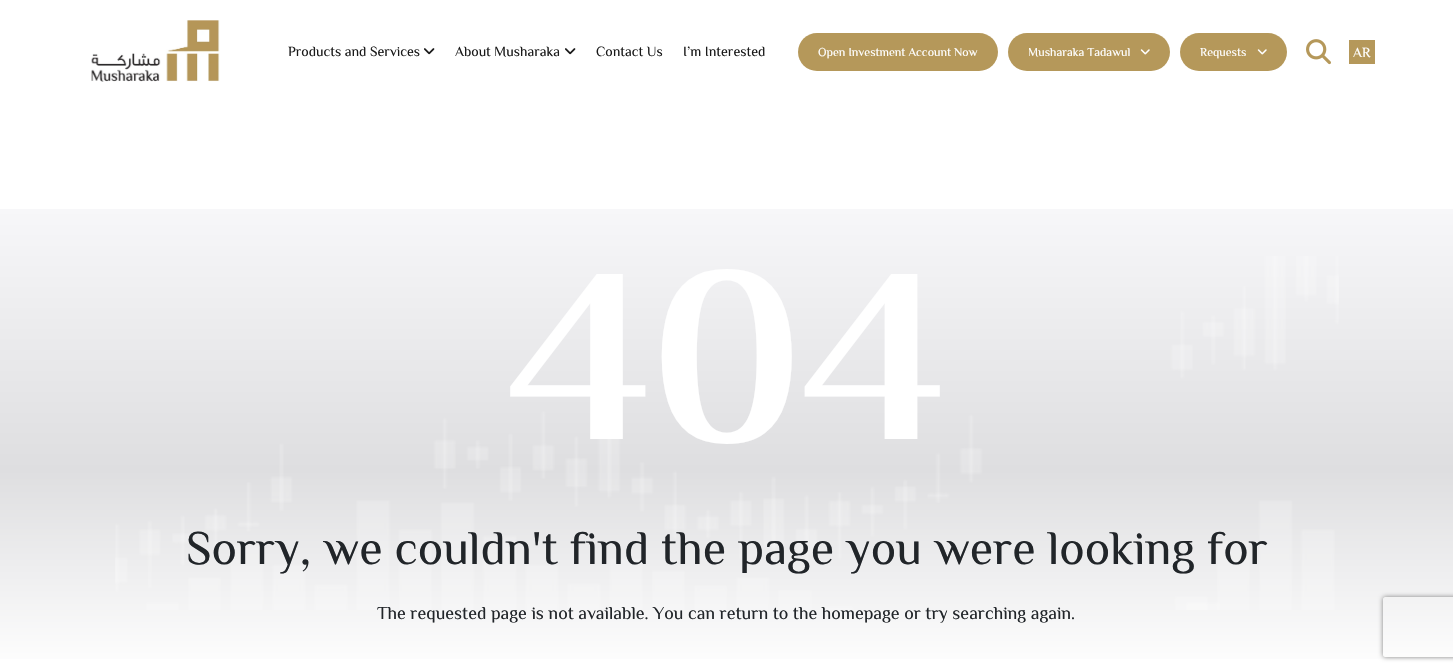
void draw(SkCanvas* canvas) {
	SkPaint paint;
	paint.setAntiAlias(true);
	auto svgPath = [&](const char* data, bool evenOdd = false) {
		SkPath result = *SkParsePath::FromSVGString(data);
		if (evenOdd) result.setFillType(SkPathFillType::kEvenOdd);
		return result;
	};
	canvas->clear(0xffffffff);
	canvas->drawImageRect(SkImages::DeferredFromEncodedData(SkData::MakeFromFileName("img1.png")), SkRect::MakeXYWH(91, 20, 129, 62), SkSamplingOptions());
	SkFont f1(fontMgr->matchFamilyStyle("Philosopher", SkFontStyle::Normal()), 14);
	f1.setSubpixel(true);
	paint.setColor(0xff1a1a1a);
	canvas->drawString("Products and Services", 288, 56, f1, paint);
	canvas->drawImageRect(SkImages::DeferredFromEncodedData(SkData::MakeFromFileName("img2.png")), SkRect::MakeXYWH(424, 48, 11, 7), SkSamplingOptions());
	canvas->drawString("About Musharaka", 455, 56, f1, paint);
	canvas->drawImageRect(SkImages::DeferredFromEncodedData(SkData::MakeFromFileName("img2.png")), SkRect::MakeXYWH(565, 48, 11, 7), SkSamplingOptions());
	canvas->drawString("Contact Us", 596, 56, f1, paint);
	canvas->drawString("I’m Interested", 683, 56, f1, paint);
	paint.setColor(0xffb5985a);
	canvas->drawRoundRect(SkRect::MakeXYWH(798, 33, 200, 38), 19, 19, paint);
	SkFont f2(fontMgr->matchFamilyStyle("Philosopher", SkFontStyle::Normal()), 12);
	f2.setSubpixel(true);
	paint.setColor(0xffffffff);
	canvas->drawString("Open Investment Account Now", 818, 56, f2, paint);
	paint.setColor(0xffb5985a);
	canvas->drawRoundRect(SkRect::MakeXYWH(1008, 33, 162, 38), 19, 19, paint);
	paint.setColor(0xffffffff);
	canvas->drawString("Musharaka Tadawul", 1028, 56, f2, paint);
	canvas->drawImageRect(SkImages::DeferredFromEncodedData(SkData::MakeFromFileName("img3.png")), SkRect::MakeXYWH(1140, 49, 10, 6), SkSamplingOptions());
	paint.setColor(0xffb5985a);
	canvas->drawRoundRect(SkRect::MakeXYWH(1180, 33, 107, 38), 19, 19, paint);
	paint.setColor(0xffffffff);
	canvas->drawString("Requests", 1200, 56, f2, paint);
	canvas->drawImageRect(SkImages::DeferredFromEncodedData(SkData::MakeFromFileName("img3.png")), SkRect::MakeXYWH(1257, 49, 10, 6), SkSamplingOptions());
	canvas->drawImageRect(SkImages::DeferredFromEncodedData(SkData::MakeFromFileName("img4.png")), SkRect::MakeXYWH(1306, 39, 25, 26), SkSamplingOptions());
	paint.setColor(0xffb5985a);
	canvas->drawRect(SkRect::MakeXYWH(1349, 40, 26, 24), paint);
	paint.setColor(0xffffffff);
	canvas->drawString("AR", 1353, 57, f1, paint);
	{
		const SkColor colors[] = {0xfff7f7f9, 0xffdedee0, 0xffffffff};
		const float stops[] = {0, 0.56, 1};
		const SkPoint ends[] = {{727, 209}, {727, 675}};
		paint.setShader(SkGradientShader::MakeLinear(ends, colors, stops, 3, SkTileMode::kClamp));
		paint.setAlpha(255);
	}
	canvas->drawRect(SkRect::MakeXYWH(0, 209, 1453, 450), paint);
	canvas->drawImageRect(SkImages::DeferredFromEncodedData(SkData::MakeFromFileName("img5.png")), SkRect::MakeXYWH(115, 256, 1224, 354), SkSamplingOptions());
	SkFont f3(fontMgr->matchFamilyStyle("Philosopher", SkFontStyle::Bold()), 250);
	f3.setSubpixel(true);
	paint.setShader(nullptr);
	paint.setColor(0xffffffff);
	canvas->drawString("404", 508, 439, f3, paint);
	SkFont f4(fontMgr->matchFamilyStyle("Philosopher", SkFontStyle::Normal()), 48);
	f4.setSubpixel(true);
	paint.setColor(0xff212529);
	canvas->drawString("Sorry, we couldn't find the page you were looking for", 186, 564, f4, paint);
	SkFont f5(fontMgr->matchFamilyStyle("Philosopher", SkFontStyle::Normal()), 18);
	f5.setSubpixel(true);
	canvas->drawString("The requested page is not available. You can return to the homepage or try searching again.", 377, 619, f5, paint);
	canvas->save();
	canvas->clipPath(svgPath("M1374 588H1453V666H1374ZM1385 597H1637C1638 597 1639 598 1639 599V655C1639 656 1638 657 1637 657H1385C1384 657 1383 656 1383 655V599C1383 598 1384 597 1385 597Z", true), true);
	paint.setColor(0xff808080);
	paint.setMaskFilter(SkMaskFilter::MakeBlur(kNormal_SkBlurStyle, 2.5));
	canvas->drawRoundRect(SkRect::MakeXYWH(1383, 597, 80, 60), 2, 2, paint);
	paint.setMaskFilter(nullptr);
	canvas->restore();
}
